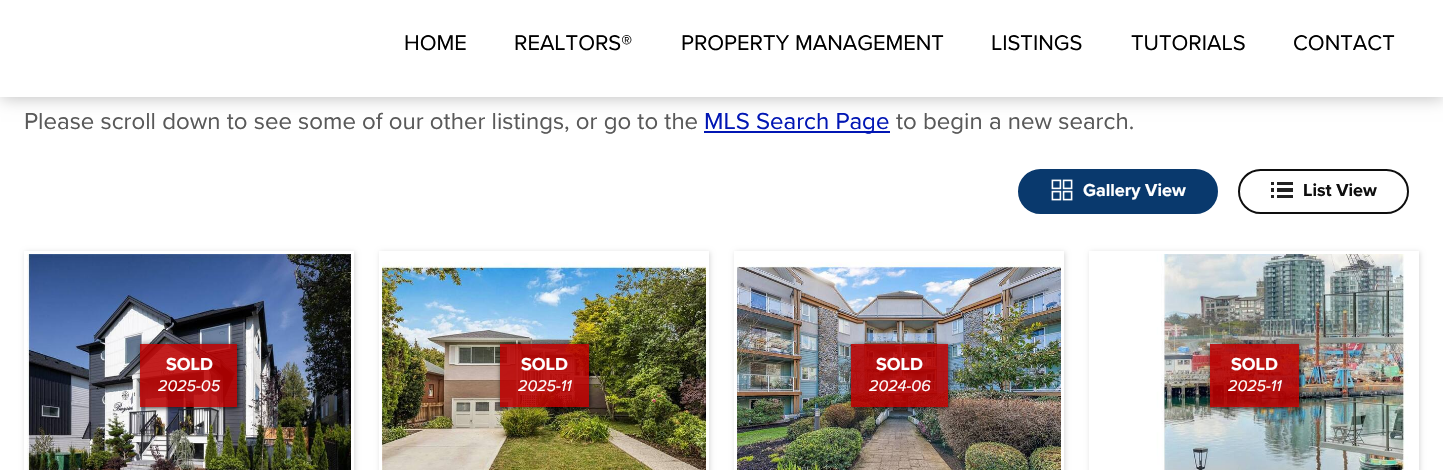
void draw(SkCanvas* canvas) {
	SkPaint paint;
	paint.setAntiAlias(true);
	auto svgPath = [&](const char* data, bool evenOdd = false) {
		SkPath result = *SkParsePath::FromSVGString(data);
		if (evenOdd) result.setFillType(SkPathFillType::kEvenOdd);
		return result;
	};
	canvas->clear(0xffffffff);
	paint.setColor(0x40000000);
	paint.setMaskFilter(SkMaskFilter::MakeBlur(kNormal_SkBlurStyle, 8));
	canvas->drawRect(SkRect::MakeXYWH(1, 1, 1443, 97), paint);
	paint.setMaskFilter(nullptr);
	paint.setColor(0xffffffff);
	canvas->drawRect(SkRect::MakeXYWH(0, 0, 1443, 97), paint);
	SkFont f1(fontMgr->matchFamilyStyle("Proxima Nova", SkFontStyle::Normal()), 22);
	f1.setSubpixel(true);
	paint.setColor(0xff000000);
	canvas->drawString("HOME", 404, 50, f1, paint);
	canvas->drawString("REALTORS®", 514, 50, f1, paint);
	canvas->drawString("PROPERTY MANAGEMENT", 681, 50, f1, paint);
	canvas->drawString("LISTINGS", 991, 50, f1, paint);
	canvas->drawString("TUTORIALS", 1131, 50, f1, paint);
	canvas->drawString("CONTACT", 1293, 50, f1, paint);
	SkFont f2(fontMgr->matchFamilyStyle("Proxima Nova", SkFontStyle::Normal()), 24);
	f2.setSubpixel(true);
	paint.setColor(0xff595959);
	canvas->drawString("Please scroll down to see some of our other listings, or go to the", 24, 129, f2, paint);
	paint.setColor(0xff0116b4);
	canvas->drawRect(SkRect::MakeXYWH(704, 131, 186, 2), paint);
	canvas->drawString("MLS Search Page", 704, 129, f2, paint);
	paint.setColor(0xff595959);
	canvas->drawString("to begin a new search.", 896, 129, f2, paint);
	paint.setColor(0xff09396d);
	canvas->drawRoundRect(SkRect::MakeXYWH(1019, 170, 198, 43), 21.5, 21.5, paint);
	paint.setStroke(true);
	paint.setStrokeWidth(2);
	canvas->drawRoundRect(SkRect::MakeXYWH(1019, 170, 198, 43), 21.5, 21.5, paint);
	canvas->drawImageRect(SkImages::DeferredFromEncodedData(SkData::MakeFromFileName("img1.png")), SkRect::MakeXYWH(1051, 179, 22, 22), SkSamplingOptions());
	SkFont f3(fontMgr->matchFamilyStyle("Proxima Nova", SkFontStyle::Bold()), 18);
	f3.setSubpixel(true);
	paint.setStroke(false);
	paint.setColor(0xffffffff);
	canvas->drawString("Gallery View", 1083, 196, f3, paint);
	paint.setStroke(true);
	paint.setColor(0xff0e0e0e);
	canvas->drawRoundRect(SkRect::MakeXYWH(1239, 170, 169, 43), 21.5, 21.5, paint);
	canvas->drawImageRect(SkImages::DeferredFromEncodedData(SkData::MakeFromFileName("img2.png")), SkRect::MakeXYWH(1271, 182, 22, 16), SkSamplingOptions());
	paint.setStroke(false);
	canvas->drawString("List View", 1303, 196, f3, paint);
	paint.setColor(0x26000000);
	paint.setMaskFilter(SkMaskFilter::MakeBlur(kNormal_SkBlurStyle, 2.5));
	canvas->drawRect(SkRect::MakeXYWH(25, 252, 330, 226), paint);
	paint.setMaskFilter(nullptr);
	paint.setStroke(true);
	paint.setStrokeWidth(3);
	paint.setColor(0xffffffff);
	canvas->drawRect(SkRect::MakeXYWH(25.5, 252.5, 327, 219), paint);
	canvas->drawImageRect(SkImages::DeferredFromEncodedData(SkData::MakeFromFileName("img3.png")), SkRect::MakeXYWH(27, 254, 324, 216), SkSamplingOptions());
	canvas->save();
	canvas->clipPath(svgPath("M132 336H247V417H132ZM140 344H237V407H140Z", true), true);
	paint.setStroke(false);
	paint.setColor(0xbf000000);
	paint.setMaskFilter(SkMaskFilter::MakeBlur(kNormal_SkBlurStyle, 2.5));
	canvas->drawRect(SkRect::MakeXYWH(141, 345, 97, 63), paint);
	paint.setMaskFilter(nullptr);
	canvas->restore();
	paint.setColor(0xe0bb0000);
	canvas->drawRect(SkRect::MakeXYWH(140, 344, 97, 63), paint);
	paint.setColor(0xffffffff);
	canvas->drawString("SOLD", 166, 370, f3, paint);
	SkFont f4(fontMgr->matchFamilyStyle("Proxima Nova", SkFontStyle::Italic()), 16);
	f4.setSubpixel(true);
	canvas->drawString("2025-05", 158, 391, f4, paint);
	paint.setColor(0x26000000);
	paint.setMaskFilter(SkMaskFilter::MakeBlur(kNormal_SkBlurStyle, 2.5));
	canvas->drawRect(SkRect::MakeXYWH(380, 252, 330, 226), paint);
	paint.setMaskFilter(nullptr);
	paint.setStroke(true);
	paint.setColor(0xffffffff);
	canvas->drawRect(SkRect::MakeXYWH(380.5, 252.5, 327, 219), paint);
	canvas->drawImageRect(SkImages::DeferredFromEncodedData(SkData::MakeFromFileName("img4.png")), SkRect::MakeXYWH(382, 254, 324, 216), SkSamplingOptions());
	canvas->save();
	canvas->clipPath(svgPath("M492 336H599V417H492ZM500 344H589V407H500Z", true), true);
	paint.setStroke(false);
	paint.setColor(0xbf000000);
	paint.setMaskFilter(SkMaskFilter::MakeBlur(kNormal_SkBlurStyle, 2.5));
	canvas->drawRect(SkRect::MakeXYWH(501, 345, 89, 63), paint);
	paint.setMaskFilter(nullptr);
	canvas->restore();
	paint.setColor(0xe0bb0000);
	canvas->drawRect(SkRect::MakeXYWH(500, 344, 89, 63), paint);
	paint.setColor(0xffffffff);
	canvas->drawString("SOLD", 521, 370, f3, paint);
	canvas->drawString("2025-11", 518, 391, f4, paint);
	paint.setColor(0x26000000);
	paint.setMaskFilter(SkMaskFilter::MakeBlur(kNormal_SkBlurStyle, 2.5));
	canvas->drawRect(SkRect::MakeXYWH(735, 252, 330, 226), paint);
	paint.setMaskFilter(nullptr);
	paint.setStroke(true);
	paint.setColor(0xffffffff);
	canvas->drawRect(SkRect::MakeXYWH(735.5, 252.5, 327, 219), paint);
	canvas->drawImageRect(SkImages::DeferredFromEncodedData(SkData::MakeFromFileName("img5.png")), SkRect::MakeXYWH(737, 254, 324, 216), SkSamplingOptions());
	canvas->save();
	canvas->clipPath(svgPath("M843 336H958V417H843ZM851 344H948V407H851Z", true), true);
	paint.setStroke(false);
	paint.setColor(0xbf000000);
	paint.setMaskFilter(SkMaskFilter::MakeBlur(kNormal_SkBlurStyle, 2.5));
	canvas->drawRect(SkRect::MakeXYWH(852, 345, 97, 63), paint);
	paint.setMaskFilter(nullptr);
	canvas->restore();
	paint.setColor(0xe0bb0000);
	canvas->drawRect(SkRect::MakeXYWH(851, 344, 97, 63), paint);
	paint.setColor(0xffffffff);
	canvas->drawString("SOLD", 876, 370, f3, paint);
	canvas->drawString("2024-06", 869, 391, f4, paint);
	paint.setColor(0x26000000);
	paint.setMaskFilter(SkMaskFilter::MakeBlur(kNormal_SkBlurStyle, 2.5));
	canvas->drawRect(SkRect::MakeXYWH(1090, 252, 330, 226), paint);
	paint.setMaskFilter(nullptr);
	paint.setStroke(true);
	paint.setColor(0xffffffff);
	canvas->drawRect(SkRect::MakeXYWH(1090.5, 252.5, 327, 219), paint);
	canvas->drawImageRect(SkImages::DeferredFromEncodedData(SkData::MakeFromFileName("img6.png")), SkRect::MakeXYWH(1092, 254, 324, 216), SkSamplingOptions());
	canvas->save();
	canvas->clipPath(svgPath("M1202 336H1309V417H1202ZM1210 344H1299V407H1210Z", true), true);
	paint.setStroke(false);
	paint.setColor(0xbf000000);
	paint.setMaskFilter(SkMaskFilter::MakeBlur(kNormal_SkBlurStyle, 2.5));
	canvas->drawRect(SkRect::MakeXYWH(1211, 345, 89, 63), paint);
	paint.setMaskFilter(nullptr);
	canvas->restore();
	paint.setColor(0xe0bb0000);
	canvas->drawRect(SkRect::MakeXYWH(1210, 344, 89, 63), paint);
	paint.setColor(0xffffffff);
	canvas->drawString("SOLD", 1231, 370, f3, paint);
	canvas->drawString("2025-11", 1228, 391, f4, paint);
}
